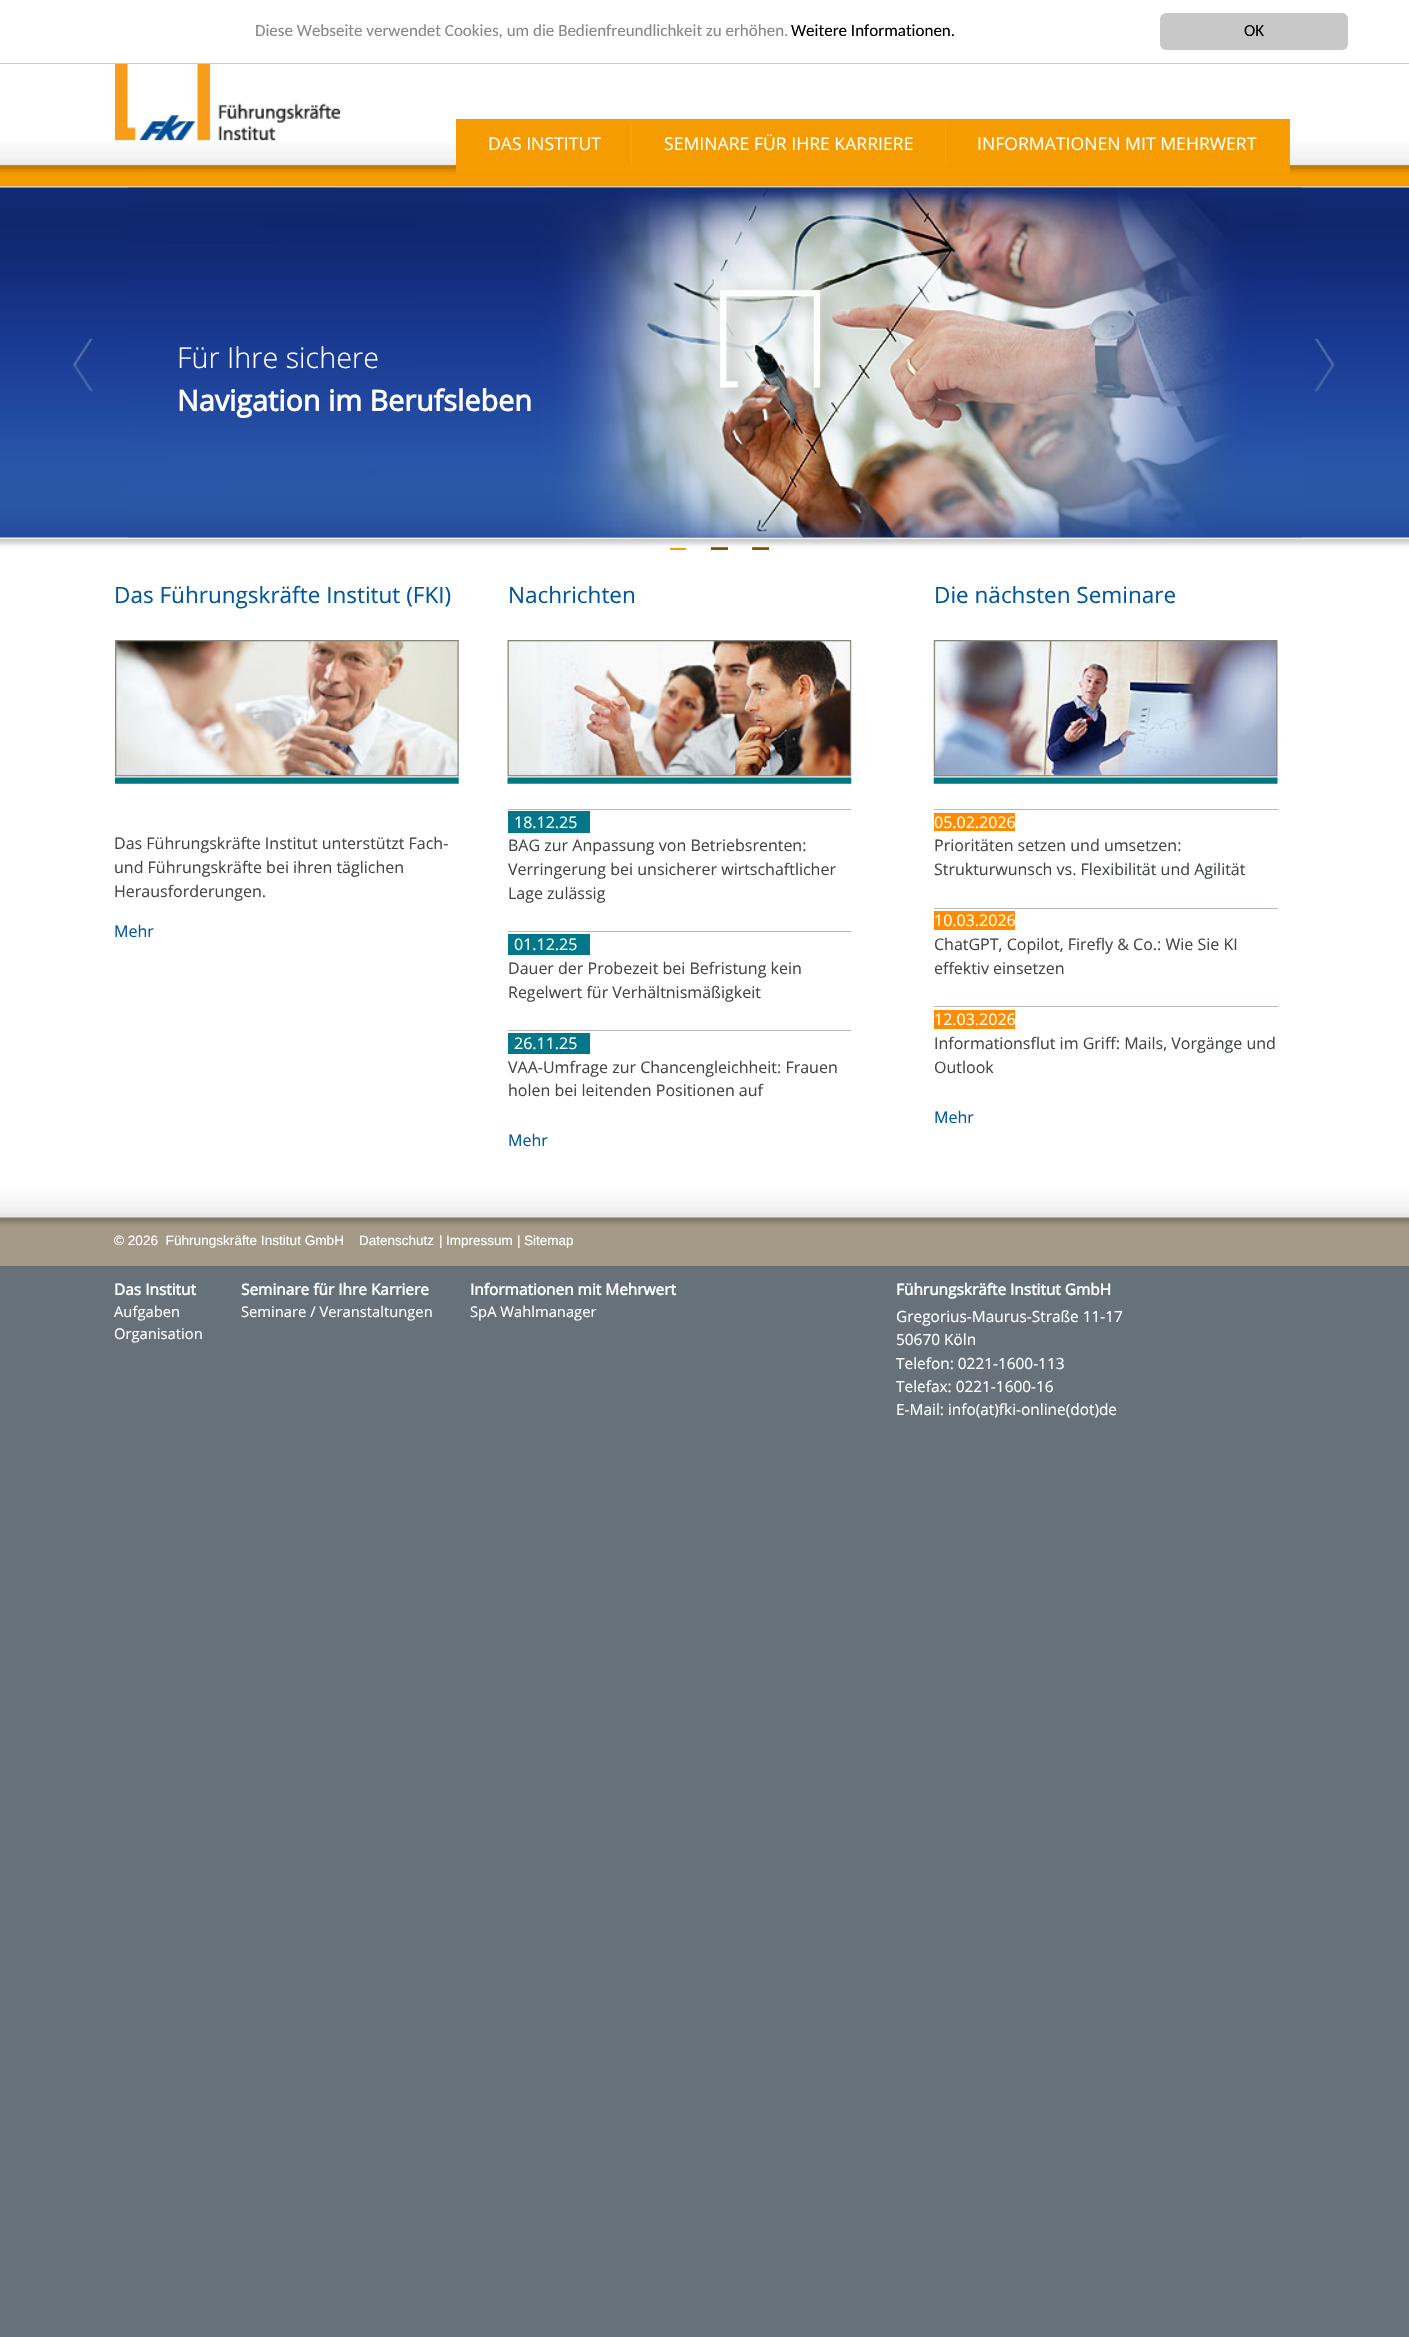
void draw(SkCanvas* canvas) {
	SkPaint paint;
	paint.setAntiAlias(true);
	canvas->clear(0xff67717a);
	paint.setColor(0xffffffff);
	canvas->drawRect(SkRect::MakeXYWH(0, 0, 1409, 63), paint);
	paint.setColor(0xffcccccc);
	canvas->drawRect(SkRect::MakeXYWH(0, 63, 1409, 1), paint);
	SkFont f1(fontMgr->matchFamilyStyle("Carlito", SkFontStyle::Normal()), 17);
	f1.setSubpixel(true);
	paint.setColor(0xff888888);
	canvas->drawString("Diese Webseite verwendet Cookies, um die Bedienfreundlichkeit zu erhöhen.", 255, 36, f1, paint);
	paint.setColor(0xff000000);
	canvas->drawString("Weitere Informationen.", 791, 36, f1, paint);
	paint.setColor(0xffc8c8c8);
	canvas->drawRoundRect(SkRect::MakeXYWH(1160, 13, 188, 37), 6, 6, paint);
	paint.setColor(0xff000000);
	canvas->drawString("OK", 1244, 36, f1, paint);
	paint.setColor(0xffffffff);
	canvas->drawRect(SkRect::MakeXYWH(0, 64, 1409, 124), paint);
	canvas->drawImageRect(SkImages::DeferredFromEncodedData(SkData::MakeFromFileName("img1.png")), SkRect::MakeXYWH(0, 143, 1409, 45), SkSamplingOptions());
	canvas->drawImageRect(SkImages::DeferredFromEncodedData(SkData::MakeFromFileName("img2.png")), SkRect::MakeXYWH(115, 64, 226, 77), SkSamplingOptions());
	paint.setColor(0xfff59c00);
	canvas->drawRect(SkRect::MakeXYWH(456, 119, 834, 55), paint);
	paint.setColor(0xff96b3ca);
	canvas->drawRect(SkRect::MakeXYWH(631, 124, 1, 40), paint);
	SkFont f2(fontMgr->matchFamilyStyle("Open Sans", SkFontStyle::Normal()), 17.6);
	f2.setSubpixel(true);
	paint.setColor(0xffffffff);
	canvas->drawString("DAS INSTITUT", 488, 150, f2, paint);
	paint.setColor(0xff96b3ca);
	canvas->drawRect(SkRect::MakeXYWH(945, 124, 1, 40), paint);
	paint.setColor(0xffffffff);
	canvas->drawString("SEMINARE FÜR IHRE KARRIERE", 664, 150, f2, paint);
	paint.setColor(0xff96b3ca);
	canvas->drawRect(SkRect::MakeXYWH(1289, 124, 1, 40), paint);
	paint.setColor(0xffffffff);
	canvas->drawString("INFORMATIONEN MIT MEHRWERT", 977, 150, f2, paint);
	canvas->drawImageRect(SkImages::DeferredFromEncodedData(SkData::MakeFromFileName("img3.png")), SkRect::MakeXYWH(0, 187, 1409, 363), SkSamplingOptions());
	canvas->drawImageRect(SkImages::DeferredFromEncodedData(SkData::MakeFromFileName("img4.png")), SkRect::MakeXYWH(73, 338, 20, 54), SkSamplingOptions());
	canvas->drawImageRect(SkImages::DeferredFromEncodedData(SkData::MakeFromFileName("img5.png")), SkRect::MakeXYWH(127, 187, 1176, 351), SkSamplingOptions());
	SkFont f3(fontMgr->matchFamilyStyle("Open Sans", SkFontStyle(300, SkFontStyle::kNormal_Width, SkFontStyle::kUpright_Slant)), 28.75);
	f3.setSubpixel(true);
	canvas->drawString("Für Ihre sichere", 177, 368, f3, paint);
	SkFont f4(fontMgr->matchFamilyStyle("Open Sans", SkFontStyle::Bold()), 28.75);
	f4.setSubpixel(true);
	canvas->drawString("Navigation im Berufsleben", 177, 411, f4, paint);
	canvas->drawImageRect(SkImages::DeferredFromEncodedData(SkData::MakeFromFileName("img6.png")), SkRect::MakeXYWH(1314, 338, 21, 54), SkSamplingOptions());
	paint.setColor(0xfff59c00);
	canvas->drawRect(SkRect::MakeXYWH(670, 548, 16, 2), paint);
	canvas->drawRect(SkRect::MakeXYWH(711, 548, 17, 2), paint);
	paint.setColor(0xad473401);
	canvas->drawRect(SkRect::MakeXYWH(711, 547, 17, 3), paint);
	paint.setColor(0xfff59c00);
	canvas->drawRect(SkRect::MakeXYWH(753, 548, 16, 2), paint);
	paint.setColor(0xad473401);
	canvas->drawRect(SkRect::MakeXYWH(752, 547, 17, 3), paint);
	paint.setColor(0xffffffff);
	canvas->drawRect(SkRect::MakeXYWH(0, 550, 1409, 635), paint);
	SkFont f5(fontMgr->matchFamilyStyle("Open Sans", SkFontStyle::Normal()), 22.5);
	f5.setSubpixel(true);
	paint.setColor(0xff00579c);
	canvas->drawString("Das Führungskräfte Institut (FKI)", 114, 603, f5, paint);
	canvas->drawImageRect(SkImages::DeferredFromEncodedData(SkData::MakeFromFileName("img7.png")), SkRect::MakeXYWH(115, 640, 344, 144), SkSamplingOptions());
	SkFont f6(fontMgr->matchFamilyStyle("Open Sans", SkFontStyle::Normal()), 16);
	f6.setSubpixel(true);
	paint.setColor(0xff434647);
	canvas->drawString("Das Führungskräfte Institut unterstützt Fach-", 114, 849, f6, paint);
	canvas->drawString("und Führungskräfte bei ihren täglichen", 114, 873, f6, paint);
	canvas->drawString("Herausforderungen.", 114, 897, f6, paint);
	paint.setColor(0xff00579c);
	canvas->drawString("Mehr", 114, 937, f6, paint);
	canvas->drawString("Nachrichten", 508, 603, f5, paint);
	canvas->drawImageRect(SkImages::DeferredFromEncodedData(SkData::MakeFromFileName("img8.png")), SkRect::MakeXYWH(507, 640, 345, 144), SkSamplingOptions());
	paint.setColor(0xffb4bbbf);
	canvas->drawRect(SkRect::MakeXYWH(508, 809, 343, 1), paint);
	paint.setColor(0xff027789);
	canvas->drawRect(SkRect::MakeXYWH(508, 811, 82, 22), paint);
	paint.setColor(0xffffffff);
	canvas->drawString("18.12.25", 514, 828, f6, paint);
	paint.setColor(0xff434647);
	canvas->drawString("BAG zur Anpassung von Betriebsrenten:", 508, 851, f6, paint);
	canvas->drawString("Verringerung bei unsicherer wirtschaftlicher", 508, 875, f6, paint);
	canvas->drawString("Lage zulässig", 508, 899, f6, paint);
	paint.setColor(0xffb4bbbf);
	canvas->drawRect(SkRect::MakeXYWH(508, 931, 343, 1), paint);
	paint.setColor(0xff027789);
	canvas->drawRect(SkRect::MakeXYWH(508, 934, 82, 21), paint);
	paint.setColor(0xffffffff);
	canvas->drawString("01.12.25", 514, 950, f6, paint);
	paint.setColor(0xff434647);
	canvas->drawString("Dauer der Probezeit bei Befristung kein", 508, 974, f6, paint);
	canvas->drawString("Regelwert für Verhältnismäßigkeit", 508, 998, f6, paint);
	paint.setColor(0xffb4bbbf);
	canvas->drawRect(SkRect::MakeXYWH(508, 1030, 343, 1), paint);
	paint.setColor(0xff027789);
	canvas->drawRect(SkRect::MakeXYWH(508, 1033, 82, 21), paint);
	paint.setColor(0xffffffff);
	canvas->drawString("26.11.25", 514, 1049, f6, paint);
	paint.setColor(0xff434647);
	canvas->drawString("VAA-Umfrage zur Chancengleichheit: Frauen", 508, 1073, f6, paint);
	canvas->drawString("holen bei leitenden Positionen auf", 508, 1096, f6, paint);
	paint.setColor(0xff00579c);
	canvas->drawString("Mehr", 508, 1146, f6, paint);
	canvas->drawString("Die nächsten Seminare", 934, 603, f5, paint);
	canvas->drawImageRect(SkImages::DeferredFromEncodedData(SkData::MakeFromFileName("img9.png")), SkRect::MakeXYWH(933, 640, 345, 144), SkSamplingOptions());
	paint.setColor(0xffb4bbbf);
	canvas->drawRect(SkRect::MakeXYWH(934, 809, 344, 1), paint);
	paint.setColor(0xffff8c01);
	canvas->drawRect(SkRect::MakeXYWH(934, 813, 81, 18), paint);
	paint.setColor(0xffffffff);
	canvas->drawString("05.02.2026", 934, 828, f6, paint);
	paint.setColor(0xff434647);
	canvas->drawString("Prioritäten setzen und umsetzen:", 934, 851, f6, paint);
	canvas->drawString("Strukturwunsch vs. Flexibilität und Agilität", 934, 875, f6, paint);
	paint.setColor(0xffb4bbbf);
	canvas->drawRect(SkRect::MakeXYWH(934, 908, 344, 1), paint);
	paint.setColor(0xffff8c01);
	canvas->drawRect(SkRect::MakeXYWH(934, 911, 81, 19), paint);
	paint.setColor(0xffffffff);
	canvas->drawString("10.03.2026", 934, 926, f6, paint);
	paint.setColor(0xff434647);
	canvas->drawString("ChatGPT, Copilot, Firefly & Co.: Wie Sie KI", 934, 950, f6, paint);
	canvas->drawString("effektiv einsetzen", 934, 974, f6, paint);
	paint.setColor(0xffb4bbbf);
	canvas->drawRect(SkRect::MakeXYWH(934, 1006, 344, 1), paint);
	paint.setColor(0xffff8c01);
	canvas->drawRect(SkRect::MakeXYWH(934, 1010, 81, 19), paint);
	paint.setColor(0xffffffff);
	canvas->drawString("12.03.2026", 934, 1025, f6, paint);
	paint.setColor(0xff434647);
	canvas->drawString("Informationsflut im Griff: Mails, Vorgänge und", 934, 1049, f6, paint);
	canvas->drawString("Outlook", 934, 1073, f6, paint);
	paint.setColor(0xff00579c);
	canvas->drawString("Mehr", 934, 1123, f6, paint);
	canvas->drawImageRect(SkImages::DeferredFromEncodedData(SkData::MakeFromFileName("img10.png")), SkRect::MakeXYWH(0, 1185, 1409, 81), SkSamplingOptions());
	SkFont f7(fontMgr->matchFamilyStyle("Liberation Sans", SkFontStyle::Normal()), 13.6);
	f7.setSubpixel(true);
	paint.setColor(0xffffffff);
	canvas->drawString("© 2026  Führungskräfte Institut GmbH", 114, 1245, f7, paint);
	SkFont f8(fontMgr->matchFamilyStyle("Liberation Sans", SkFontStyle::Normal()), 13.5);
	f8.setSubpixel(true);
	canvas->drawString("Datenschutz", 359, 1245, f8, paint);
	canvas->drawString("|", 439, 1245, f7, paint);
	canvas->drawString("Impressum", 446, 1245, f8, paint);
	canvas->drawString("|", 517, 1245, f7, paint);
	canvas->drawString("Sitemap", 524, 1245, f8, paint);
	SkFont f9(fontMgr->matchFamilyStyle("Open Sans", SkFontStyle::Bold()), 15.4);
	f9.setSubpixel(true);
	canvas->drawString("Das Institut", 114, 1295, f9, paint);
	SkFont f10(fontMgr->matchFamilyStyle("Open Sans", SkFontStyle::Normal()), 14.75);
	f10.setSubpixel(true);
	canvas->drawString("Aufgaben", 114, 1317, f10, paint);
	canvas->drawString("Organisation", 114, 1339, f10, paint);
	canvas->drawString("Seminare für Ihre Karriere", 241, 1295, f9, paint);
	canvas->drawString("Seminare / Veranstaltungen", 241, 1317, f10, paint);
	canvas->drawString("Informationen mit Mehrwert", 470, 1295, f9, paint);
	canvas->drawString("SpA Wahlmanager", 470, 1317, f10, paint);
	canvas->drawString("Führungskräfte Institut GmbH", 896, 1295, f9, paint);
	SkFont f11(fontMgr->matchFamilyStyle("Open Sans", SkFontStyle::Normal()), 15.4);
	f11.setSubpixel(true);
	canvas->drawString("Gregorius-Maurus-Straße 11-17", 896, 1322, f11, paint);
	canvas->drawString("50670 Köln", 896, 1345, f11, paint);
	canvas->drawString("Telefon: 0221-1600-113", 896, 1369, f11, paint);
	canvas->drawString("Telefax: 0221-1600-16", 896, 1392, f11, paint);
	canvas->drawString("E-Mail: info(at)fki-online(dot)de", 896, 1415, f11, paint);
}
